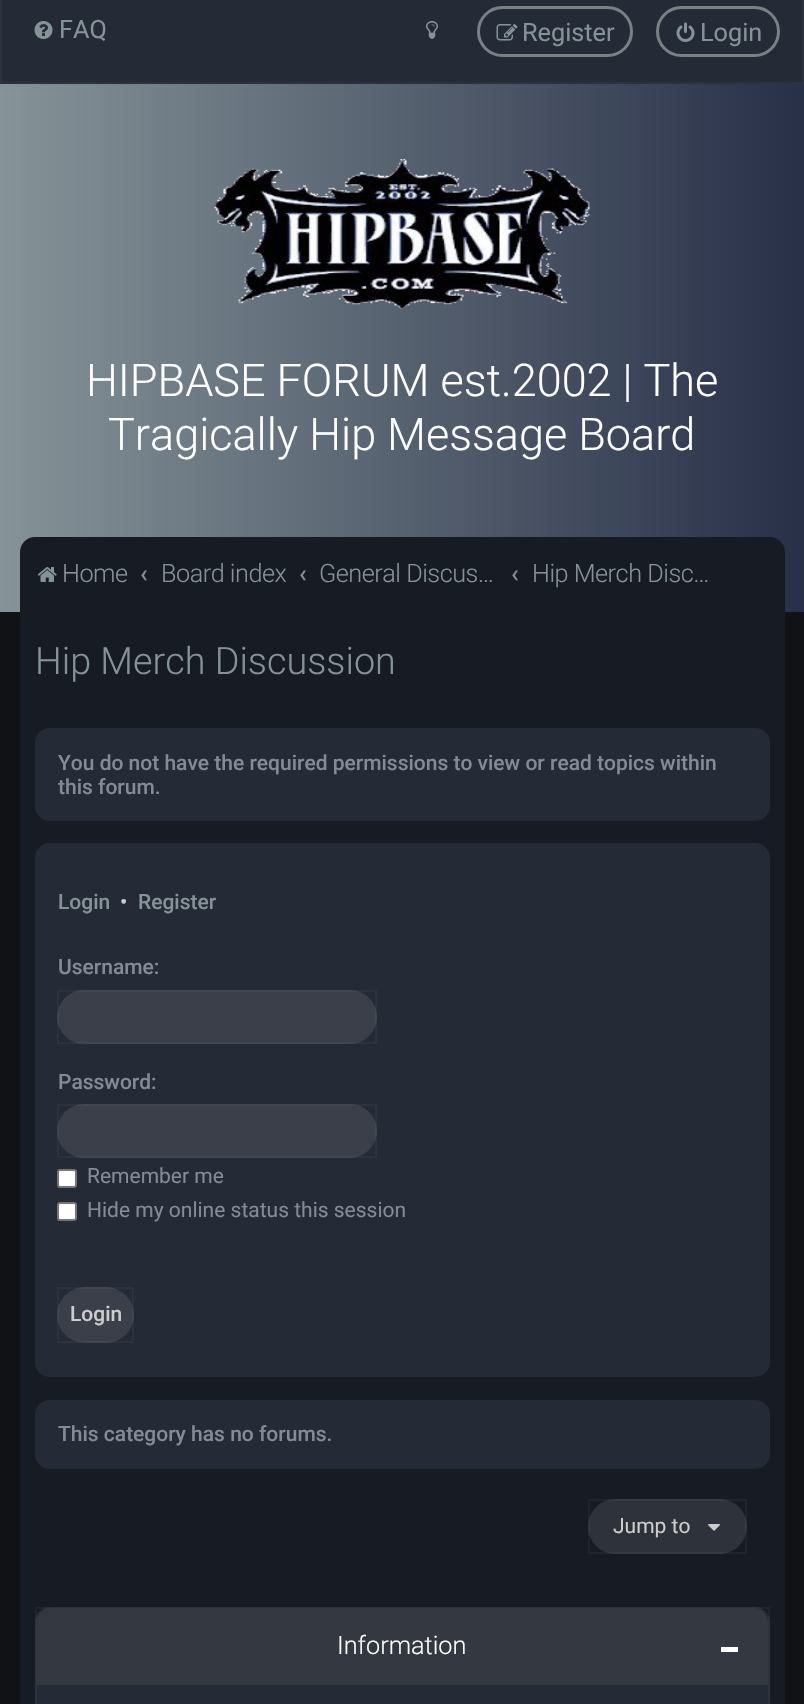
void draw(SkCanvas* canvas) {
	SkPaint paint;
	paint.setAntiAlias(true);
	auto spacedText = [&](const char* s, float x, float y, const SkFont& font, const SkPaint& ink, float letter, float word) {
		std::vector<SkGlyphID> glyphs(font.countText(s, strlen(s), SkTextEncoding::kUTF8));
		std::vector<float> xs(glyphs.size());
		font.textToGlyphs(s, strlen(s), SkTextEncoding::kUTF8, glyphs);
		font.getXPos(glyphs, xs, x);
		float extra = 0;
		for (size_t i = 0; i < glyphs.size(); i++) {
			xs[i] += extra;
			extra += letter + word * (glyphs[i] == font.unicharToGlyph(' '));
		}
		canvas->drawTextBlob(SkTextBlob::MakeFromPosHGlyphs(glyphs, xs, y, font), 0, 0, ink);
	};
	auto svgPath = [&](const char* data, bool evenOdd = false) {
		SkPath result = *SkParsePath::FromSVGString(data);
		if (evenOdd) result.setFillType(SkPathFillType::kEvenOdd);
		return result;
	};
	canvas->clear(0xff101216);
	paint.setColor(0xff242a36);
	canvas->drawRect(SkRect::MakeXYWH(1, -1, 802, 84), paint);
	paint.setStroke(true);
	paint.setStrokeWidth(2);
	paint.setColor(0xff2d333e);
	canvas->drawRect(SkRect::MakeXYWH(1, -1, 802, 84), paint);
	canvas->drawImageRect(SkImages::DeferredFromEncodedData(SkData::MakeFromFileName("img1.png")), SkRect::MakeXYWH(34, 21, 19, 18), SkSamplingOptions());
	SkFont f1(fontMgr->matchFamilyStyle("Roboto", SkFontStyle::Normal()), 25.25);
	f1.setSubpixel(true);
	paint.setStroke(false);
	paint.setColor(0xff859398);
	canvas->drawString("FAQ", 59, 38, f1, paint);
	canvas->drawImageRect(SkImages::DeferredFromEncodedData(SkData::MakeFromFileName("img2.png")), SkRect::MakeXYWH(426, 21, 12, 18), SkSamplingOptions());
	paint.setStroke(true);
	paint.setStrokeWidth(3);
	paint.setColor(0xff7c7f86);
	canvas->drawRoundRect(SkRect::MakeXYWH(478.5, 7.5, 153, 48), 24, 24, paint);
	canvas->drawImageRect(SkImages::DeferredFromEncodedData(SkData::MakeFromFileName("img3.png")), SkRect::MakeXYWH(496, 24, 22, 17), SkSamplingOptions());
	paint.setStroke(false);
	paint.setColor(0xff859398);
	canvas->drawString("Register", 522, 41, f1, paint);
	paint.setStroke(true);
	paint.setColor(0xff7c7f86);
	canvas->drawRoundRect(SkRect::MakeXYWH(657.5, 7.5, 121, 48), 24, 24, paint);
	canvas->drawImageRect(SkImages::DeferredFromEncodedData(SkData::MakeFromFileName("img4.png")), SkRect::MakeXYWH(676, 22, 19, 20), SkSamplingOptions());
	paint.setStroke(false);
	paint.setColor(0xff859398);
	canvas->drawString("Login", 700, 41, f1, paint);
	{
		const SkColor colors[] = {0xff859398, 0xff283048};
		const float stops[] = {0, 1};
		const SkPoint ends[] = {{0, 348}, {804, 348}};
		paint.setShader(SkGradientShader::MakeLinear(ends, colors, stops, 2, SkTileMode::kClamp));
		paint.setAlpha(255);
	}
	canvas->drawRect(SkRect::MakeXYWH(0, 84, 804, 528), paint);
	canvas->drawImageRect(SkImages::DeferredFromEncodedData(SkData::MakeFromFileName("img5.png")), SkRect::MakeXYWH(214, 159, 376, 150), SkSamplingOptions());
	SkFont f2(fontMgr->matchFamilyStyle("Roboto", SkFontStyle(300, SkFontStyle::kNormal_Width, SkFontStyle::kUpright_Slant)), 45);
	f2.setSubpixel(true);
	paint.setShader(nullptr);
	paint.setColor(0xffffffff);
	canvas->drawString("HIPBASE FORUM est.2002 | The", 86, 396, f2, paint);
	canvas->drawString("Tragically Hip Message Board", 108, 450, f2, paint);
	paint.setColor(0xff171b24);
	canvas->drawRoundRect(SkRect::MakeXYWH(20, 537, 765, 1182), 15, 15, paint);
	canvas->drawImageRect(SkImages::DeferredFromEncodedData(SkData::MakeFromFileName("img6.png")), SkRect::MakeXYWH(37, 567, 20, 15), SkSamplingOptions());
	SkFont f3(fontMgr->matchFamilyStyle("Roboto", SkFontStyle(300, SkFontStyle::kNormal_Width, SkFontStyle::kUpright_Slant)), 25.25);
	f3.setSubpixel(true);
	paint.setColor(0xff859398);
	spacedText("Home", 62, 582, f3, paint, -0.5, 0);
	SkFont f4(fontMgr->matchFamilyStyle("Roboto", SkFontStyle(500, SkFontStyle::kNormal_Width, SkFontStyle::kUpright_Slant)), 25.25);
	f4.setSubpixel(true);
	paint.setColor(0xff838b98);
	canvas->drawString("‹", 140, 582, f4, paint);
	paint.setColor(0xff859398);
	spacedText("Board index", 161, 582, f3, paint, -0.5, 0);
	paint.setColor(0xff838b98);
	canvas->drawString("‹", 299, 582, f4, paint);
	paint.setColor(0xff859398);
	spacedText("General Discus…", 319, 582, f3, paint, -0.5, 0);
	paint.setColor(0xff838b98);
	canvas->drawString("‹", 511, 582, f4, paint);
	paint.setColor(0xff859398);
	spacedText("Hip Merch Disc…", 532, 582, f3, paint, -0.5, 0);
	SkFont f5(fontMgr->matchFamilyStyle("Roboto", SkFontStyle(300, SkFontStyle::kNormal_Width, SkFontStyle::kUpright_Slant)), 37.75);
	f5.setSubpixel(true);
	canvas->drawString("Hip Merch Discussion", 35, 674, f5, paint);
	paint.setColor(0xff242a36);
	canvas->drawRoundRect(SkRect::MakeXYWH(35, 728, 735, 93), 15, 15, paint);
	SkFont f6(fontMgr->matchFamilyStyle("Roboto", SkFontStyle(500, SkFontStyle::kNormal_Width, SkFontStyle::kUpright_Slant)), 21);
	f6.setSubpixel(true);
	paint.setColor(0xff838b98);
	canvas->drawString("You do not have the required permissions to view or read topics within", 58, 770, f6, paint);
	canvas->drawString("this forum.", 58, 794, f6, paint);
	paint.setColor(0xff242a36);
	canvas->drawRoundRect(SkRect::MakeXYWH(35, 843, 735, 534), 15, 15, paint);
	paint.setColor(0xff859398);
	canvas->drawString("Login", 58, 909, f6, paint);
	paint.setColor(0xffcccccc);
	canvas->drawString("•", 120, 909, f6, paint);
	paint.setColor(0xff859398);
	canvas->drawString("Register", 138, 909, f6, paint);
	paint.setColor(0xff838b98);
	canvas->drawString("Username:", 58, 974, f6, paint);
	paint.setColor(0xff3a3f4a);
	canvas->drawRoundRect(SkRect::MakeXYWH(57, 990, 320, 54), 27, 27, paint);
	paint.setStroke(true);
	paint.setStrokeWidth(2);
	paint.setColor(0x0affffff);
	canvas->drawRect(SkRect::MakeXYWH(58, 991, 318, 52), paint);
	paint.setStroke(false);
	paint.setColor(0xff838b98);
	canvas->drawString("Password:", 58, 1089, f6, paint);
	paint.setColor(0xff3a3f4a);
	canvas->drawRoundRect(SkRect::MakeXYWH(57, 1104, 320, 54), 27, 27, paint);
	paint.setStroke(true);
	paint.setColor(0x0affffff);
	canvas->drawRect(SkRect::MakeXYWH(58, 1105, 318, 52), paint);
	paint.setStroke(false);
	paint.setColor(0xffffffff);
	canvas->drawRoundRect(SkRect::MakeXYWH(58, 1170, 18, 17), 2, 2, paint);
	paint.setStroke(true);
	paint.setColor(0xff767676);
	canvas->drawRoundRect(SkRect::MakeXYWH(58, 1170, 18, 17), 2, 2, paint);
	SkFont f7(fontMgr->matchFamilyStyle("Roboto", SkFontStyle::Normal()), 21);
	f7.setSubpixel(true);
	paint.setStroke(false);
	paint.setColor(0xff838b98);
	canvas->drawString("Remember me", 87, 1183, f7, paint);
	paint.setColor(0xffffffff);
	canvas->drawRoundRect(SkRect::MakeXYWH(58, 1203, 18, 17), 2, 2, paint);
	paint.setStroke(true);
	paint.setColor(0xff767676);
	canvas->drawRoundRect(SkRect::MakeXYWH(58, 1203, 18, 17), 2, 2, paint);
	paint.setStroke(false);
	paint.setColor(0xff838b98);
	canvas->drawString("Hide my online status this session", 87, 1217, f7, paint);
	paint.setColor(0xff3a3f4a);
	canvas->drawRoundRect(SkRect::MakeXYWH(57, 1287, 77, 56), 28, 28, paint);
	paint.setStroke(true);
	paint.setColor(0x0affffff);
	canvas->drawRect(SkRect::MakeXYWH(58, 1288, 75, 54), paint);
	paint.setStroke(false);
	paint.setColor(0xffcccccc);
	canvas->drawString("Login", 70, 1321, f6, paint);
	paint.setColor(0xff242a36);
	canvas->drawRoundRect(SkRect::MakeXYWH(35, 1400, 735, 69), 15, 15, paint);
	paint.setColor(0xff838b98);
	canvas->drawString("This category has no forums.", 58, 1441, f6, paint);
	paint.setColor(0xff2e323a);
	canvas->drawRoundRect(SkRect::MakeXYWH(588, 1499, 159, 55), 27.5, 27.5, paint);
	paint.setStroke(true);
	paint.setColor(0x0affffff);
	canvas->drawRect(SkRect::MakeXYWH(589, 1500, 157, 53), paint);
	paint.setStroke(false);
	paint.setColor(0xffcccccc);
	canvas->drawString("Jump to", 613, 1533, f7, paint);
	canvas->drawImageRect(SkImages::DeferredFromEncodedData(SkData::MakeFromFileName("img7.png")), SkRect::MakeXYWH(708, 1524, 12, 7), SkSamplingOptions());
	paint.setColor(0xff242a36);
	canvas->drawRoundRect(SkRect::MakeXYWH(35, 1607, 735, 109), 15, 15, paint);
	paint.setStroke(true);
	paint.setColor(0x0affffff);
	canvas->drawRect(SkRect::MakeXYWH(36, 1608, 733, 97), paint);
	paint.setStroke(false);
	paint.setColor(0xff343840);
	canvas->drawPath(svgPath("M51 1608H753C761.5 1608 768 1614.5 768 1623V1685H36V1623C36 1614.5 42.5 1608 51 1608Z"), paint);
	paint.setColor(0xffffffff);
	canvas->drawString("Information", 337, 1654, f3, paint);
	canvas->drawRect(SkRect::MakeXYWH(721, 1647, 17, 5), paint);
}
